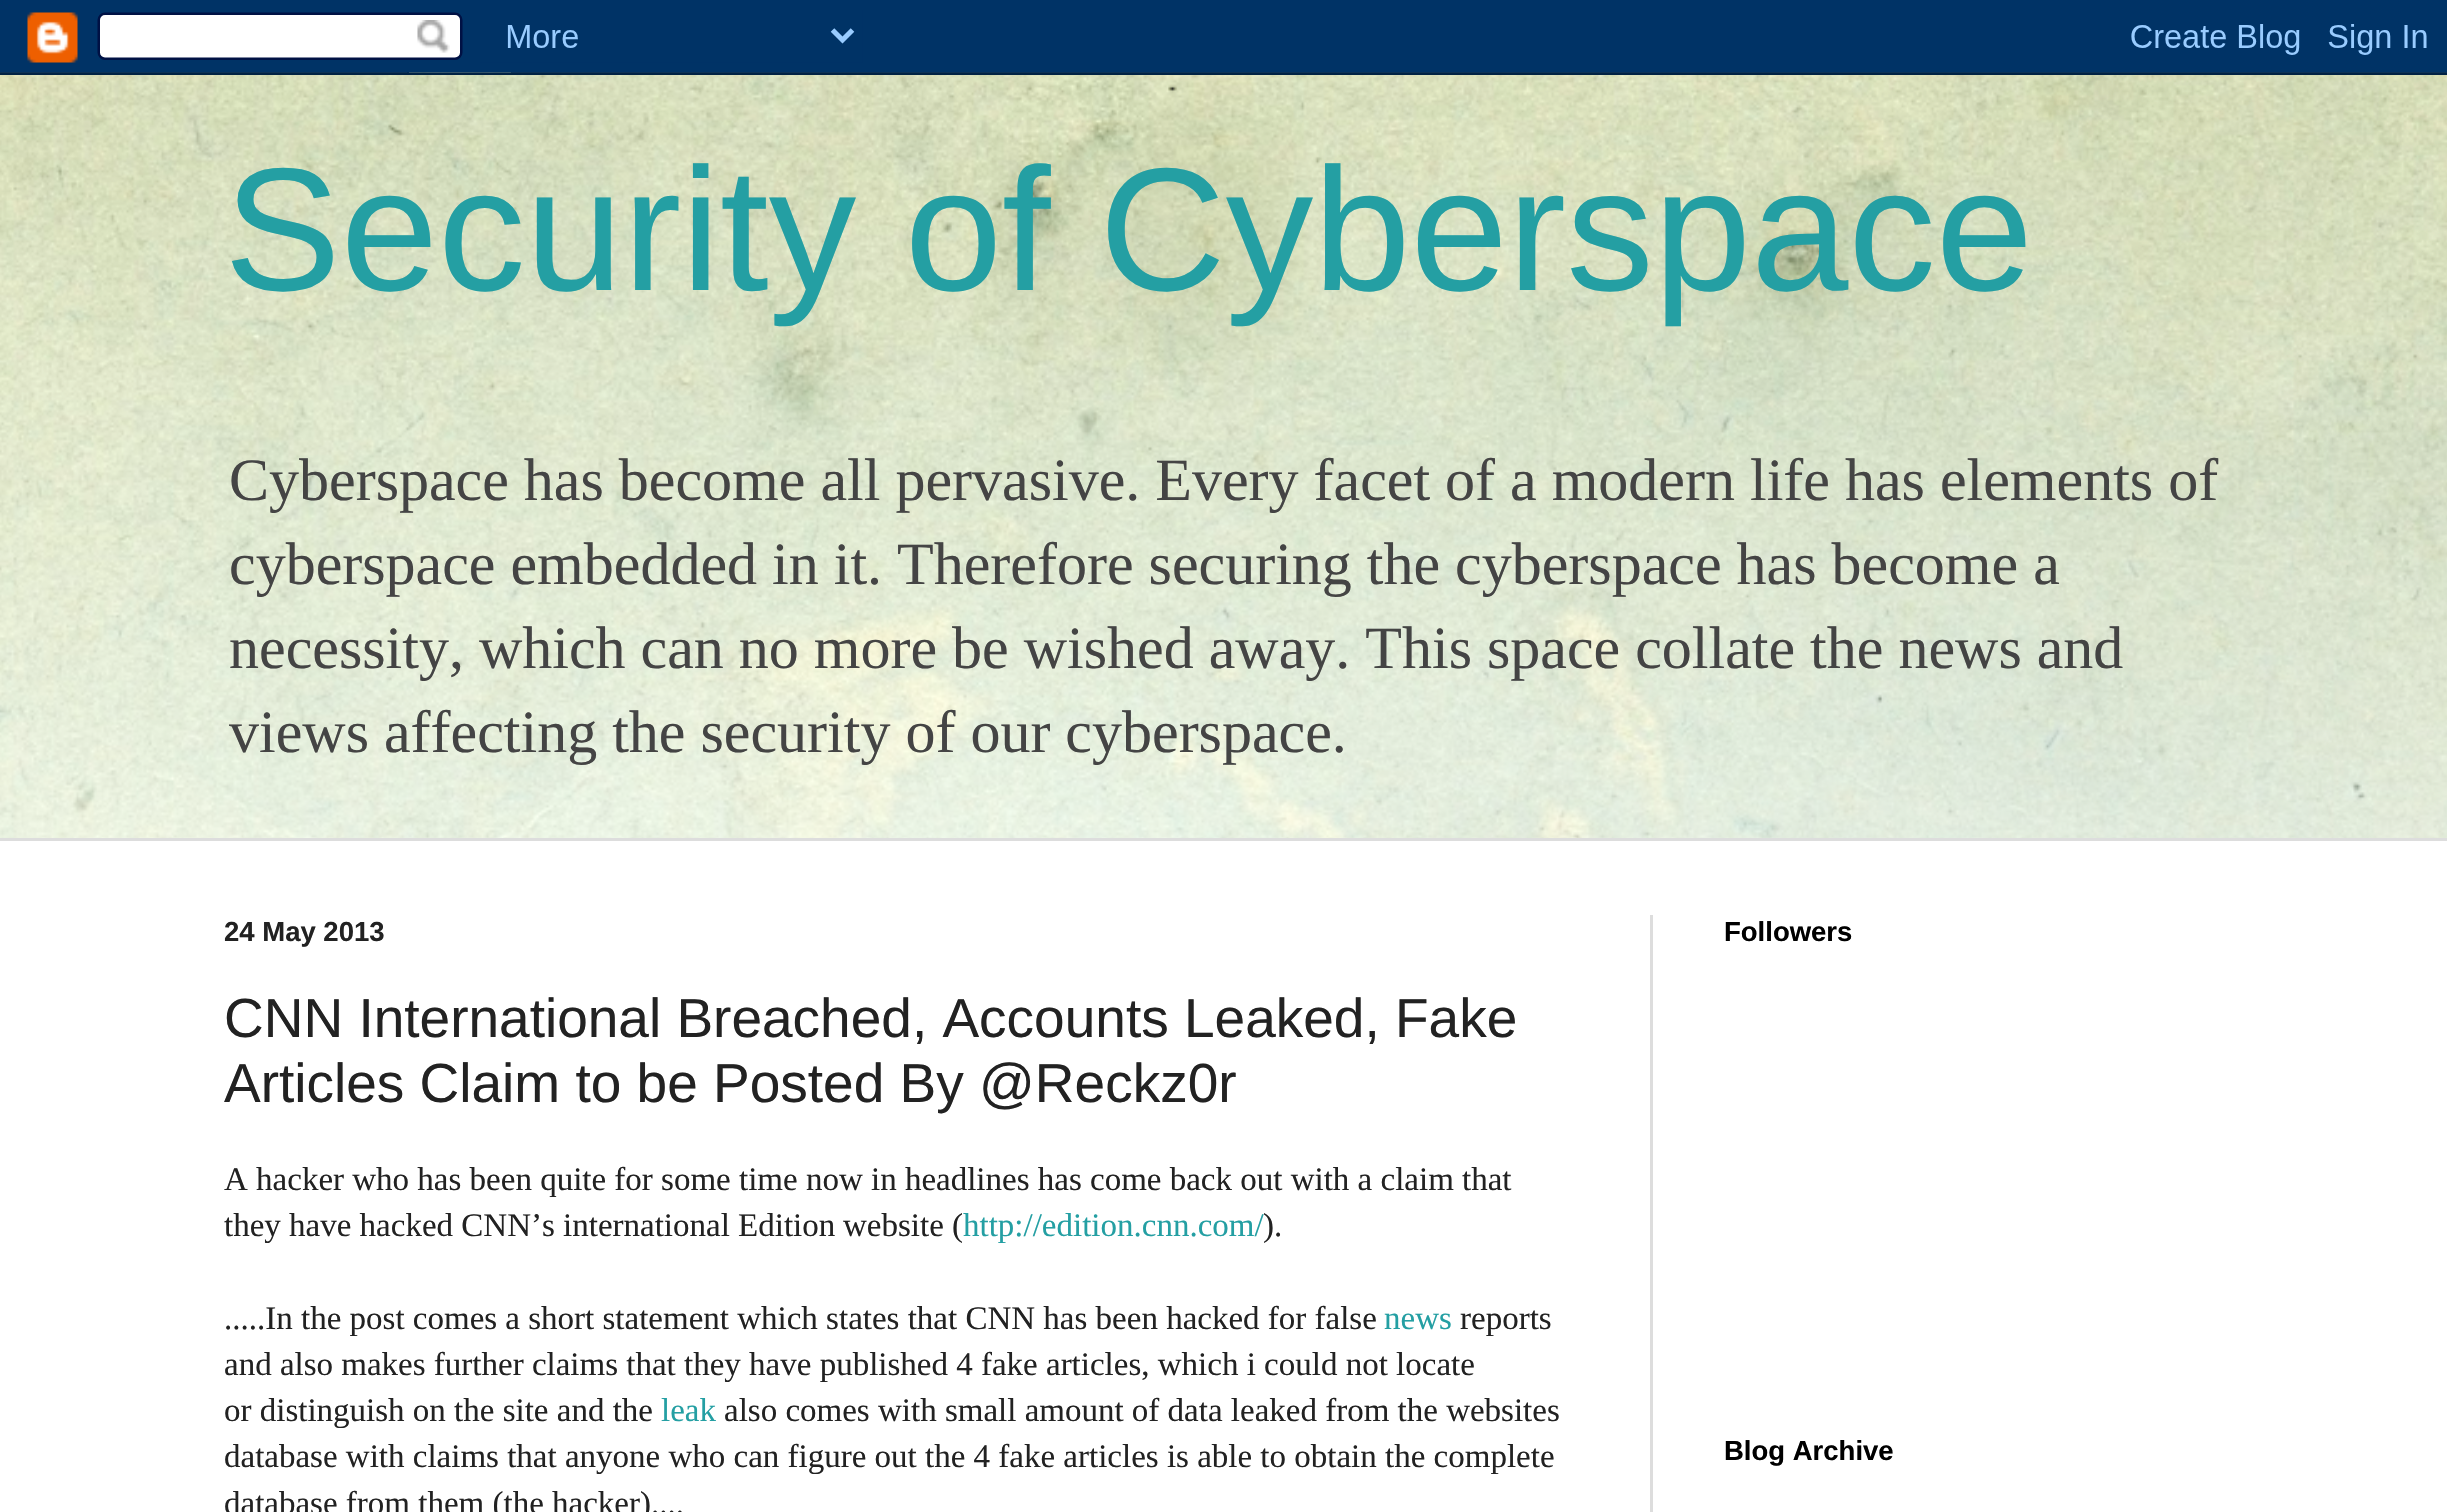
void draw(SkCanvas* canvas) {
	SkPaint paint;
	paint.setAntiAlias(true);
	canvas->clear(0xffffffff);
	canvas->drawImageRect(SkImages::DeferredFromEncodedData(SkData::MakeFromFileName("img2.png")), SkRect::MakeXYWH(0, 72, 2447, 766), SkSamplingOptions());
	canvas->drawImageRect(SkImages::DeferredFromEncodedData(SkData::MakeFromFileName("img3.png")), SkRect::MakeXYWH(0, 72, 2447, 766), SkSamplingOptions());
	canvas->drawImageRect(SkImages::DeferredFromEncodedData(SkData::MakeFromFileName("img1.png")), SkRect::MakeXYWH(0, 0, 2447, 75), SkSamplingOptions());
	SkFont f1(fontMgr->matchFamilyStyle("Liberation Sans", SkFontStyle::Normal()), 175);
	f1.setSubpixel(true);
	paint.setColor(0xff249fa3);
	canvas->drawString("Security of Cyberspace", 224, 290, f1, paint);
	SkFont f2(fontMgr->matchFamilyStyle("Liberation Serif", SkFontStyle::Normal()), 60);
	f2.setSubpixel(true);
	paint.setColor(0xff444444);
	canvas->drawString("Cyberspace has become all pervasive. Every facet of a modern life has elements of", 229, 500, f2, paint);
	canvas->drawString("cyberspace embedded in it. Therefore securing the cyberspace has become a", 229, 584, f2, paint);
	canvas->drawString("necessity, which can no more be wished away. This space collate the news and", 229, 668, f2, paint);
	canvas->drawString("views affecting the security of our cyberspace.", 229, 752, f2, paint);
	paint.setColor(0xffdddddd);
	canvas->drawRect(SkRect::MakeXYWH(0, 838, 2447, 3), paint);
	canvas->drawRect(SkRect::MakeXYWH(1650, 915, 3, 597), paint);
	SkFont f3(fontMgr->matchFamilyStyle("Liberation Sans", SkFontStyle::Bold()), 27.5);
	f3.setSubpixel(true);
	paint.setColor(0xff222222);
	canvas->drawString("24 May 2013", 224, 941, f3, paint);
	SkFont f4(fontMgr->matchFamilyStyle("Liberation Sans", SkFontStyle::Normal()), 55);
	f4.setSubpixel(true);
	canvas->drawString("CNN International Breached, Accounts Leaked, Fake", 224, 1037, f4, paint);
	canvas->drawString("Articles Claim to be Posted By @Reckz0r", 224, 1102, f4, paint);
	SkFont f5(fontMgr->matchFamilyStyle("Liberation Serif", SkFontStyle::Normal()), 33);
	f5.setSubpixel(true);
	canvas->drawString("A hacker who has been quite for some time now in headlines has come back out with a claim that", 224, 1190, f5, paint);
	canvas->drawString("they have hacked CNN’s international Edition", 224, 1236, f5, paint);
	canvas->drawString("website (", 843, 1236, f5, paint);
	paint.setColor(0xff249fa3);
	canvas->drawString("http://edition.cnn.com/", 963, 1236, f5, paint);
	paint.setColor(0xff222222);
	canvas->drawString(").", 1263, 1236, f5, paint);
	canvas->drawString(".....In the post comes a short statement which states that CNN has been hacked for false", 224, 1329, f5, paint);
	paint.setColor(0xff249fa3);
	canvas->drawString("news", 1384, 1329, f5, paint);
	paint.setColor(0xff222222);
	canvas->drawString("reports", 1460, 1329, f5, paint);
	canvas->drawString("and also makes further claims that they have published 4 fake articles, which i could not locate", 224, 1375, f5, paint);
	canvas->drawString("or distinguish on the site and the", 224, 1421, f5, paint);
	paint.setColor(0xff249fa3);
	canvas->drawString("leak", 661, 1421, f5, paint);
	paint.setColor(0xff222222);
	canvas->drawString("also comes with small amount of data leaked from the websites", 724, 1421, f5, paint);
	canvas->drawString("database with claims that anyone who can figure out the 4 fake articles is able to obtain the complete", 224, 1467, f5, paint);
	canvas->drawString("database from them (the hacker)....", 224, 1514, f5, paint);
	paint.setColor(0xff000000);
	canvas->drawString("Followers", 1724, 941, f3, paint);
	canvas->drawString("Blog Archive", 1724, 1460, f3, paint);
}
